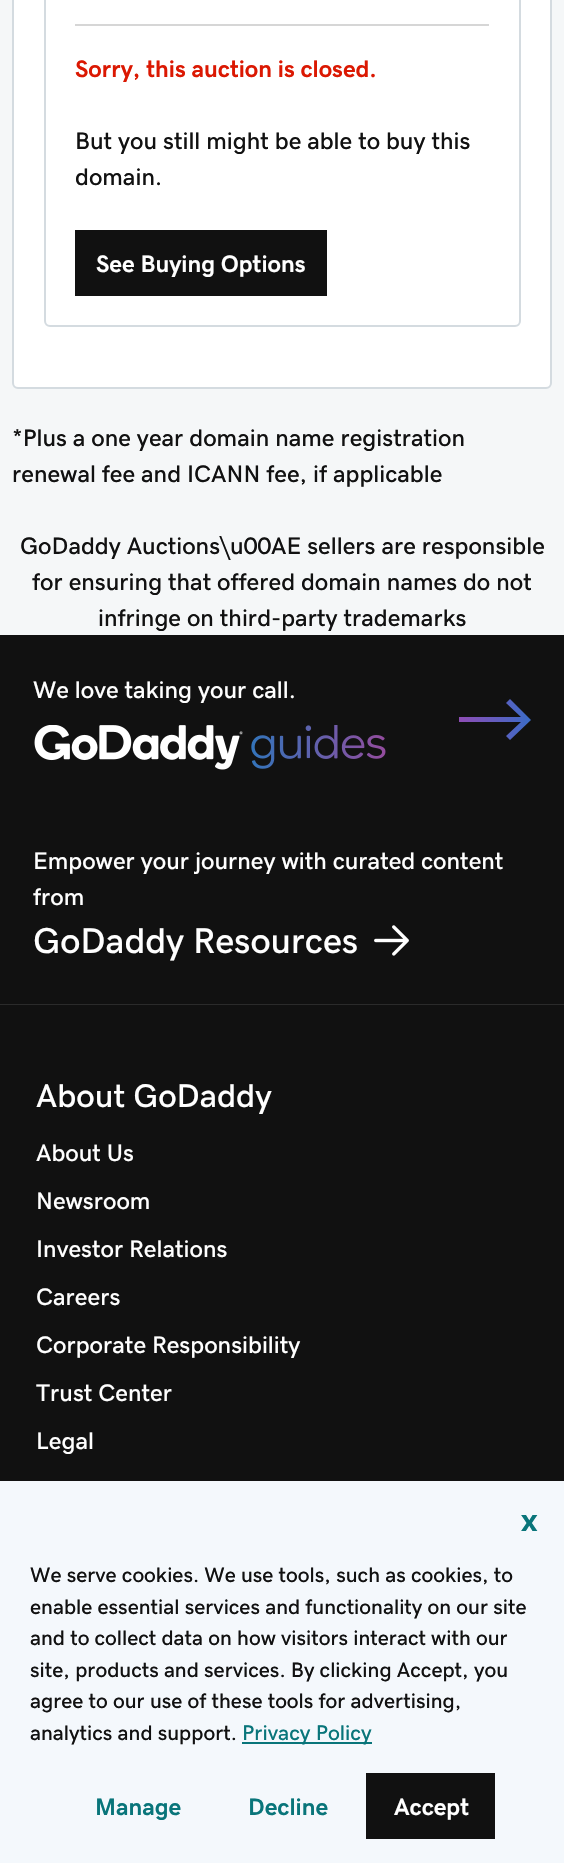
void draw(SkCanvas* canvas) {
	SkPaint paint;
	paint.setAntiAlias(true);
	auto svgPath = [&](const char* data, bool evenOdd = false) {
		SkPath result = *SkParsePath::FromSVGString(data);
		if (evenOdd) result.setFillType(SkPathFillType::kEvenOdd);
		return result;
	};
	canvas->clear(0xfff5f7f8);
	paint.setColor(0xffffffff);
	canvas->drawRoundRect(SkRect::MakeXYWH(13, -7, 538, 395), 5, 5, paint);
	paint.setStroke(true);
	paint.setStrokeWidth(2);
	paint.setColor(0xffd4dbe0);
	canvas->drawRoundRect(SkRect::MakeXYWH(13, -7, 538, 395), 5, 5, paint);
	canvas->drawRoundRect(SkRect::MakeXYWH(45, -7, 475, 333), 5, 5, paint);
	paint.setStroke(false);
	paint.setColor(0xffd6d6d6);
	canvas->drawRect(SkRect::MakeXYWH(75, 24, 414, 2), paint);
	SkFont f1(fontMgr->matchFamilyStyle("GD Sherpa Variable", SkFontStyle::Bold()), 24);
	f1.setSubpixel(true);
	paint.setColor(0xffdb1802);
	canvas->drawString("Sorry, this auction is closed.", 75, 77, f1, paint);
	SkFont f2(fontMgr->matchFamilyStyle("GD Sherpa Variable", SkFontStyle(500, SkFontStyle::kNormal_Width, SkFontStyle::kUpright_Slant)), 24);
	f2.setSubpixel(true);
	paint.setColor(0xff111111);
	canvas->drawString("But you still might be able to buy this", 75, 149, f2, paint);
	canvas->drawString("domain.", 75, 185, f2, paint);
	canvas->drawRect(SkRect::MakeXYWH(75, 230, 252, 66), paint);
	paint.setColor(0xffffffff);
	canvas->drawString("See Buying Options", 96, 272, f1, paint);
	paint.setColor(0xff111111);
	canvas->drawString("*Plus a one year domain name registration", 12, 446, f2, paint);
	canvas->drawString("renewal fee and ICANN fee, if applicable", 12, 482, f2, paint);
	canvas->drawString("GoDaddy Auctions\\u00AE sellers are responsible", 20, 554, f2, paint);
	canvas->drawString("for ensuring that offered domain names do not", 32, 590, f2, paint);
	canvas->drawString("infringe on third-party trademarks", 98, 626, f2, paint);
	canvas->drawRect(SkRect::MakeXYWH(0, 635, 564, 369), paint);
	paint.setColor(0xff2b2b2b);
	canvas->drawRect(SkRect::MakeXYWH(0, 1004, 564, 1), paint);
	paint.setColor(0xffffffff);
	canvas->drawString("We love taking your call.", 33, 698, f2, paint);
	canvas->drawImageRect(SkImages::DeferredFromEncodedData(SkData::MakeFromFileName("img1.png")), SkRect::MakeXYWH(34, 725, 352, 45), SkSamplingOptions());
	{
		const SkColor colors[] = {0xff8f4db5, 0xff2474cc};
		const float stops[] = {0, 1};
		const SkPoint ends[] = {{459, 722}, {549, 722}};
		paint.setShader(SkGradientShader::MakeLinear(ends, colors, stops, 2, SkTileMode::kClamp));
		paint.setAlpha(255);
	}
	canvas->drawPath(svgPath("M521 722H459V717H521L506 703L510 699L531 720L510 740L506 736Z"), paint);
	paint.setShader(nullptr);
	paint.setColor(0xffffffff);
	canvas->drawString("Empower your journey with curated content", 33, 869, f2, paint);
	canvas->drawString("from", 33, 905, f2, paint);
	SkFont f3(fontMgr->matchFamilyStyle("GD Sherpa Variable", SkFontStyle(500, SkFontStyle::kNormal_Width, SkFontStyle::kUpright_Slant)), 36);
	f3.setSubpixel(true);
	canvas->drawString("GoDaddy Resources", 33, 953, f3, paint);
	canvas->drawImageRect(SkImages::DeferredFromEncodedData(SkData::MakeFromFileName("img2.png")), SkRect::MakeXYWH(374, 925, 35, 31), SkSamplingOptions());
	paint.setColor(0xff111111);
	canvas->drawRect(SkRect::MakeXYWH(0, 1005, 564, 476), paint);
	SkFont f4(fontMgr->matchFamilyStyle("GD Sherpa Variable", SkFontStyle(500, SkFontStyle::kNormal_Width, SkFontStyle::kUpright_Slant)), 33);
	f4.setSubpixel(true);
	paint.setColor(0xffffffff);
	canvas->drawString("About GoDaddy", 36, 1107, f4, paint);
	canvas->drawString("About Us", 36, 1161, f2, paint);
	canvas->drawString("Newsroom", 36, 1209, f2, paint);
	canvas->drawString("Investor Relations", 36, 1257, f2, paint);
	canvas->drawString("Careers", 36, 1305, f2, paint);
	canvas->drawString("Corporate Responsibility", 36, 1353, f2, paint);
	canvas->drawString("Trust Center", 36, 1401, f2, paint);
	canvas->drawString("Legal", 36, 1449, f2, paint);
	paint.setColor(0xfff4f8fc);
	canvas->drawRect(SkRect::MakeXYWH(0, 1481, 564, 382), paint);
	SkFont f5(fontMgr->matchFamilyStyle("GD Sherpa Variable", SkFontStyle::Bold()), 33);
	f5.setSubpixel(true);
	paint.setColor(0xff09757a);
	canvas->drawString("x", 521, 1531, f5, paint);
	SkFont f6(fontMgr->matchFamilyStyle("GD Sherpa Variable", SkFontStyle(500, SkFontStyle::kNormal_Width, SkFontStyle::kUpright_Slant)), 21);
	f6.setSubpixel(true);
	paint.setColor(0xff111111);
	canvas->drawString("We serve cookies. We use tools, such as cookies, to", 30, 1582, f6, paint);
	canvas->drawString("enable essential services and functionality on our site", 30, 1614, f6, paint);
	canvas->drawString("and to collect data on how visitors interact with our", 30, 1645, f6, paint);
	canvas->drawString("site, products and services. By clicking Accept, you", 30, 1677, f6, paint);
	canvas->drawString("agree to our use of these tools for advertising,", 30, 1708, f6, paint);
	canvas->drawString("analytics and support.", 30, 1740, f6, paint);
	paint.setColor(0xff09757a);
	canvas->drawRect(SkRect::MakeXYWH(242, 1742, 130, 2), paint);
	SkFont f7(fontMgr->matchFamilyStyle("GD Sherpa Variable", SkFontStyle(500, SkFontStyle::kNormal_Width, SkFontStyle::kUpright_Slant)), 21.25);
	f7.setSubpixel(true);
	canvas->drawString("Privacy Policy", 242, 1740, f7, paint);
	canvas->drawString("Manage", 95, 1815, f1, paint);
	canvas->drawString("Decline", 248, 1815, f1, paint);
	paint.setColor(0xff111111);
	canvas->drawRect(SkRect::MakeXYWH(366, 1773, 129, 66), paint);
	paint.setColor(0xffffffff);
	canvas->drawString("Accept", 394, 1815, f1, paint);
}
